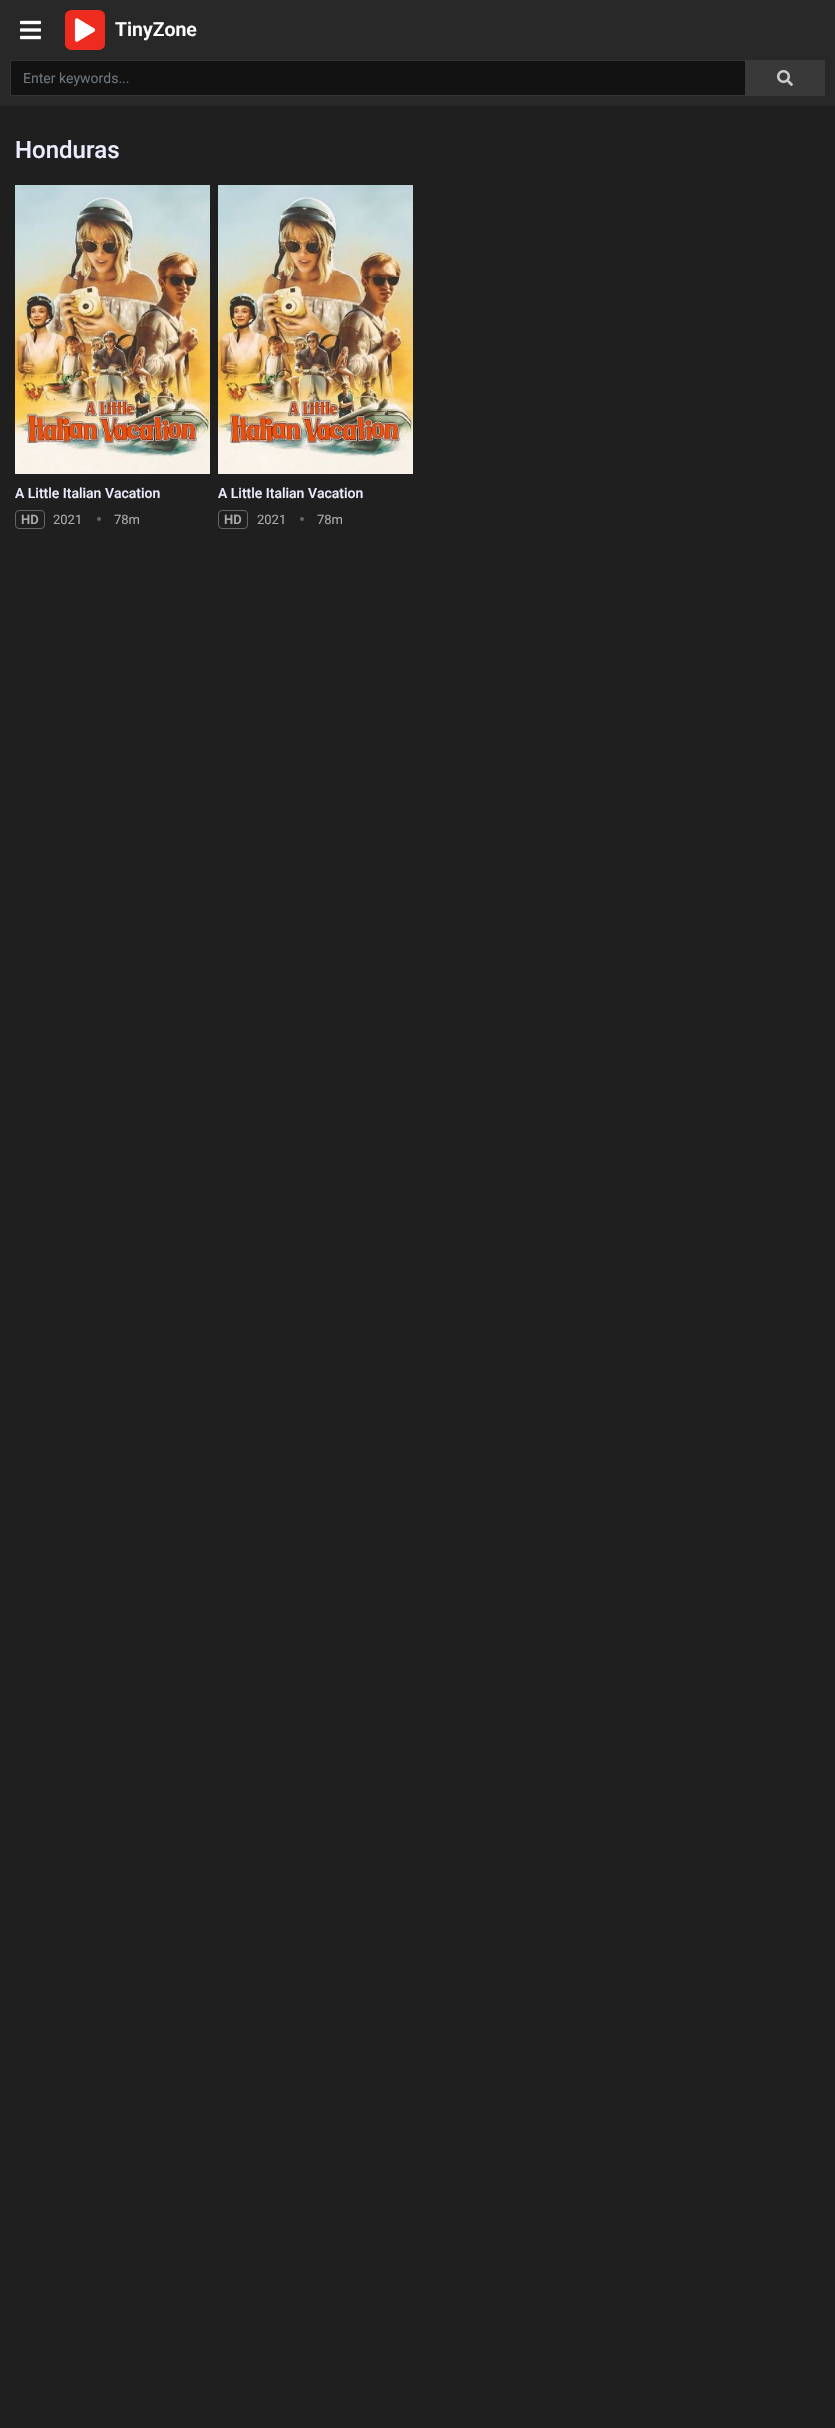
void draw(SkCanvas* canvas) {
	SkPaint paint;
	paint.setAntiAlias(true);
	canvas->clear(0xff1f1f1f);
	paint.setColor(0xff282828);
	canvas->drawRect(SkRect::MakeXYWH(0, 0, 835, 106), paint);
	canvas->drawImageRect(SkImages::DeferredFromEncodedData(SkData::MakeFromFileName("img1.png")), SkRect::MakeXYWH(20, 20, 21, 20), SkSamplingOptions());
	canvas->drawImageRect(SkImages::DeferredFromEncodedData(SkData::MakeFromFileName("img2.png")), SkRect::MakeXYWH(65, 10, 40, 40), SkSamplingOptions());
	SkFont f1(fontMgr->matchFamilyStyle("Roboto", SkFontStyle(600, SkFontStyle::kNormal_Width, SkFontStyle::kUpright_Slant)), 19.5);
	f1.setSubpixel(true);
	paint.setColor(0xffffffff);
	canvas->drawString("TinyZone", 115, 36, f1, paint);
	paint.setColor(0xff121212);
	canvas->drawRect(SkRect::MakeXYWH(11, 61, 734, 34), paint);
	paint.setStroke(true);
	paint.setStrokeWidth(1);
	paint.setColor(0xff333333);
	canvas->drawRect(SkRect::MakeXYWH(10.5, 60.5, 814, 35), paint);
	SkFont f2(fontMgr->matchFamilyStyle("Roboto", SkFontStyle::Normal()), 14);
	f2.setSubpixel(true);
	paint.setStroke(false);
	paint.setColor(0xff6c757d);
	canvas->drawString("Enter keywords...", 23, 83, f2, paint);
	paint.setColor(0xff393939);
	canvas->drawRect(SkRect::MakeXYWH(745, 60, 80, 36), paint);
	canvas->drawImageRect(SkImages::DeferredFromEncodedData(SkData::MakeFromFileName("img3.png")), SkRect::MakeXYWH(777, 70, 16, 16), SkSamplingOptions());
	SkFont f3(fontMgr->matchFamilyStyle("Roboto", SkFontStyle(500, SkFontStyle::kNormal_Width, SkFontStyle::kUpright_Slant)), 24);
	f3.setSubpixel(true);
	paint.setColor(0xffececff);
	canvas->drawString("Honduras", 15, 158, f3, paint);
	canvas->drawImageRect(SkImages::DeferredFromEncodedData(SkData::MakeFromFileName("img4.png")), SkRect::MakeXYWH(15, 185, 195, 289), SkSamplingOptions());
	SkFont f4(fontMgr->matchFamilyStyle("Roboto", SkFontStyle(500, SkFontStyle::kNormal_Width, SkFontStyle::kUpright_Slant)), 14);
	f4.setSubpixel(true);
	canvas->drawString("A Little Italian Vacation", 15, 498, f4, paint);
	paint.setStroke(true);
	paint.setColor(0xff666666);
	canvas->drawRoundRect(SkRect::MakeXYWH(15.5, 510.5, 29, 18), 3.5, 3.5, paint);
	SkFont f5(fontMgr->matchFamilyStyle("Roboto", SkFontStyle(600, SkFontStyle::kNormal_Width, SkFontStyle::kUpright_Slant)), 13);
	f5.setSubpixel(true);
	paint.setStroke(false);
	paint.setColor(0xffaaaaaa);
	canvas->drawString("HD", 21, 524, f5, paint);
	SkFont f6(fontMgr->matchFamilyStyle("Roboto", SkFontStyle::Normal()), 13);
	f6.setSubpixel(true);
	canvas->drawString("2021", 53, 524, f6, paint);
	paint.setColor(0xff666666);
	canvas->drawCircle(99, 519, 2, paint);
	paint.setColor(0xffaaaaaa);
	canvas->drawString("78m", 114, 524, f6, paint);
	canvas->drawImageRect(SkImages::DeferredFromEncodedData(SkData::MakeFromFileName("img5.png")), SkRect::MakeXYWH(218, 185, 195, 289), SkSamplingOptions());
	paint.setColor(0xffececff);
	canvas->drawString("A Little Italian Vacation", 218, 498, f4, paint);
	paint.setStroke(true);
	paint.setColor(0xff666666);
	canvas->drawRoundRect(SkRect::MakeXYWH(218.5, 510.5, 29, 18), 3.5, 3.5, paint);
	paint.setStroke(false);
	paint.setColor(0xffaaaaaa);
	canvas->drawString("HD", 224, 524, f5, paint);
	canvas->drawString("2021", 257, 524, f6, paint);
	paint.setColor(0xff666666);
	canvas->drawCircle(302, 519, 2, paint);
	paint.setColor(0xffaaaaaa);
	canvas->drawString("78m", 317, 524, f6, paint);
}
